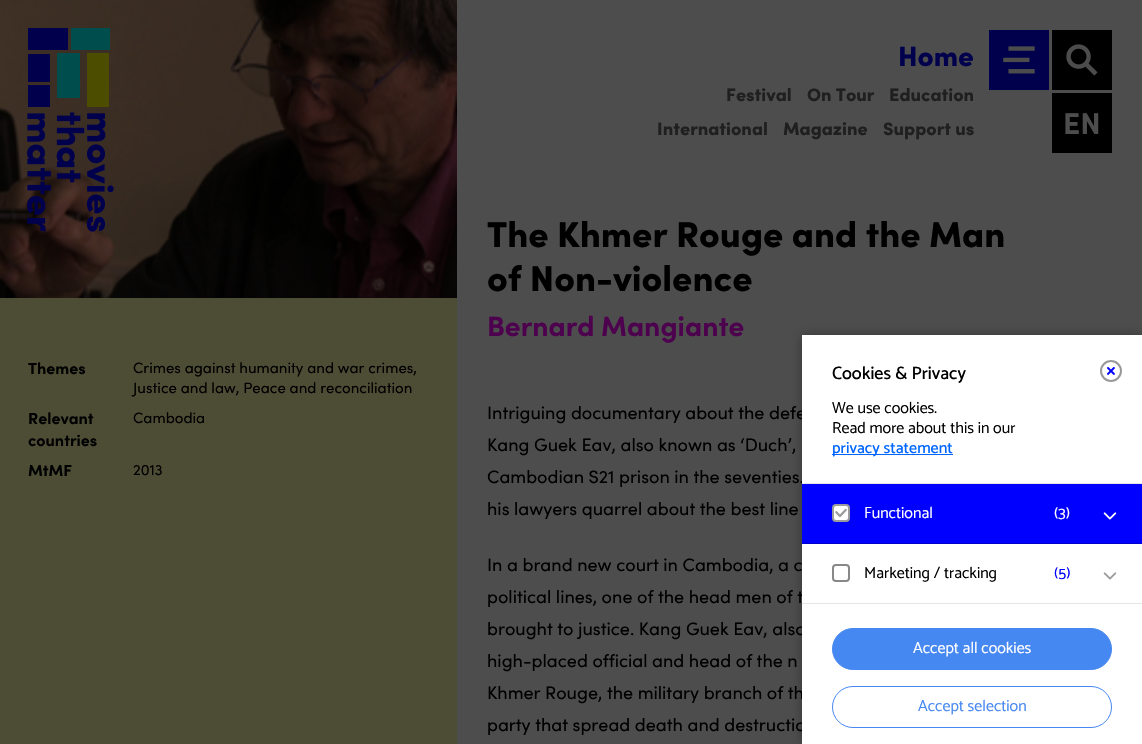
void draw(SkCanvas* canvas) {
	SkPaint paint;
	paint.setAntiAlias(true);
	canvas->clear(0xff4d4d4d);
	SkFont f1(fontMgr->matchFamilyStyle("Sofia", SkFontStyle(900, SkFontStyle::kNormal_Width, SkFontStyle::kUpright_Slant)), 28);
	f1.setSubpixel(true);
	paint.setColor(0xff00004d);
	canvas->drawString("Home", 898, 66, f1, paint);
	SkFont f2(fontMgr->matchFamilyStyle("Sofia", SkFontStyle(900, SkFontStyle::kNormal_Width, SkFontStyle::kUpright_Slant)), 18);
	f2.setSubpixel(true);
	paint.setColor(0xff1f1f1f);
	canvas->drawString("Festival", 726, 101, f2, paint);
	canvas->drawString("On Tour", 807, 101, f2, paint);
	canvas->drawString("Education", 889, 101, f2, paint);
	canvas->drawString("International", 657, 135, f2, paint);
	canvas->drawString("Magazine", 783, 135, f2, paint);
	canvas->drawString("Support us", 883, 135, f2, paint);
	canvas->drawImageRect(SkImages::DeferredFromEncodedData(SkData::MakeFromFileName("img4.png")), SkRect::MakeXYWH(0, 0, 457, 298), SkSamplingOptions());
	paint.setColor(0xff004d4d);
	canvas->drawRect(SkRect::MakeXYWH(57, 53, 23, 45), paint);
	paint.setColor(0xff4d4d00);
	canvas->drawRect(SkRect::MakeXYWH(87, 53, 22, 54), paint);
	paint.setColor(0xff004d4d);
	canvas->drawRect(SkRect::MakeXYWH(71, 28, 39, 22), paint);
	paint.setColor(0xff00004d);
	canvas->drawRect(SkRect::MakeXYWH(28, 28, 40, 22), paint);
	canvas->drawRect(SkRect::MakeXYWH(28, 54, 22, 28), paint);
	canvas->drawRect(SkRect::MakeXYWH(28, 85, 22, 22), paint);
	canvas->drawImageRect(SkImages::DeferredFromEncodedData(SkData::MakeFromFileName("img1.png")), SkRect::MakeXYWH(26, 112, 88, 120), SkSamplingOptions());
	canvas->drawRect(SkRect::MakeXYWH(989, 30, 60, 60), paint);
	canvas->drawImageRect(SkImages::DeferredFromEncodedData(SkData::MakeFromFileName("img2.png")), SkRect::MakeXYWH(1003, 46, 32, 28), SkSamplingOptions());
	paint.setStroke(true);
	paint.setStrokeWidth(4);
	paint.setColor(0xff000000);
	canvas->drawRect(SkRect::MakeXYWH(1054, 32, 56, 56), paint);
	paint.setStroke(false);
	canvas->drawRect(SkRect::MakeXYWH(1056, 34, 52, 52), paint);
	canvas->drawImageRect(SkImages::DeferredFromEncodedData(SkData::MakeFromFileName("img3.png")), SkRect::MakeXYWH(1066, 44, 32, 32), SkSamplingOptions());
	paint.setStroke(true);
	canvas->drawRect(SkRect::MakeXYWH(1054, 95, 56, 56), paint);
	paint.setStroke(false);
	canvas->drawRect(SkRect::MakeXYWH(1056, 97, 52, 52), paint);
	SkFont f3(fontMgr->matchFamilyStyle("Sofia", SkFontStyle::Bold()), 30);
	f3.setSubpixel(true);
	paint.setColor(0xff4d4d4d);
	canvas->drawString("EN", 1063, 134, f3, paint);
	paint.setColor(0xff4d4d36);
	canvas->drawRect(SkRect::MakeXYWH(0, 298, 457, 446), paint);
	SkFont f4(fontMgr->matchFamilyStyle("Sofia", SkFontStyle::Bold()), 16);
	f4.setSubpixel(true);
	paint.setColor(0xff000000);
	canvas->drawString("Themes", 28, 374, f4, paint);
	SkFont f5(fontMgr->matchFamilyStyle("Sofia", SkFontStyle::Normal()), 15);
	f5.setSubpixel(true);
	canvas->drawString("Crimes against humanity and war crimes,", 133, 373, f5, paint);
	canvas->drawString("Justice and law, Peace and reconciliation", 133, 393, f5, paint);
	canvas->drawString("Relevant", 28, 424, f4, paint);
	canvas->drawString("countries", 28, 446, f4, paint);
	canvas->drawString("Cambodia", 133, 423, f5, paint);
	canvas->drawString("MtMF", 28, 476, f4, paint);
	canvas->drawString("2013", 133, 475, f5, paint);
	SkFont f6(fontMgr->matchFamilyStyle("Sofia", SkFontStyle(900, SkFontStyle::kNormal_Width, SkFontStyle::kUpright_Slant)), 36);
	f6.setSubpixel(true);
	canvas->drawString("The Khmer Rouge and the Man", 487, 247, f6, paint);
	canvas->drawString("of Non-violence", 487, 291, f6, paint);
	SkFont f7(fontMgr->matchFamilyStyle("Sofia", SkFontStyle::Bold()), 28);
	f7.setSubpixel(true);
	paint.setColor(0xff4d004d);
	canvas->drawString("Bernard Mangiante", 487, 336, f7, paint);
	SkFont f8(fontMgr->matchFamilyStyle("Sofia", SkFontStyle::Normal()), 18);
	f8.setSubpixel(true);
	paint.setColor(0xff000000);
	canvas->drawString("Intriguing documentary about the defe", 487, 419, f8, paint);
	canvas->drawString("Kang Guek Eav, also known as ‘Duch’,", 487, 451, f8, paint);
	canvas->drawString("Cambodian S21 prison in the seventies.", 487, 483, f8, paint);
	canvas->drawString("his lawyers quarrel about the best line", 487, 515, f8, paint);
	canvas->drawString("In a brand new court in Cambodia, a c", 487, 571, f8, paint);
	canvas->drawString("political lines, one of the head men of t", 487, 603, f8, paint);
	canvas->drawString("brought to justice. Kang Guek Eav, also", 487, 635, f8, paint);
	canvas->drawString("high-placed official and head of the n", 487, 667, f8, paint);
	canvas->drawString("Khmer Rouge, the military branch of th", 487, 699, f8, paint);
	canvas->drawString("party that spread death and destructio", 487, 731, f8, paint);
	paint.setColor(0x4d000000);
	paint.setMaskFilter(SkMaskFilter::MakeBlur(kNormal_SkBlurStyle, 5));
	canvas->drawRect(SkRect::MakeXYWH(802, 335, 340, 409), paint);
	paint.setMaskFilter(nullptr);
	paint.setColor(0xffffffff);
	canvas->drawRect(SkRect::MakeXYWH(802, 335, 340, 409), paint);
	paint.setColor(0xffe6e6e6);
	canvas->drawRect(SkRect::MakeXYWH(802, 483, 340, 1), paint);
	SkFont f9(fontMgr->matchFamilyStyle("Catamaran", SkFontStyle(500, SkFontStyle::kNormal_Width, SkFontStyle::kUpright_Slant)), 18);
	f9.setSubpixel(true);
	paint.setColor(0xff000000);
	canvas->drawString("Cookies & Privacy", 832, 379, f9, paint);
	paint.setStroke(true);
	paint.setStrokeWidth(2);
	paint.setColor(0xff999999);
	canvas->drawCircle(1111, 371, 10, paint);
	canvas->drawImageRect(SkImages::DeferredFromEncodedData(SkData::MakeFromFileName("img5.png")), SkRect::MakeXYWH(1107, 367, 8, 8), SkSamplingOptions());
	SkFont f10(fontMgr->matchFamilyStyle("Catamaran", SkFontStyle::Normal()), 16);
	f10.setSubpixel(true);
	paint.setStroke(false);
	paint.setColor(0xff000000);
	canvas->drawString("We use cookies.", 832, 413, f10, paint);
	canvas->drawString("Read more about this in our", 832, 433, f10, paint);
	paint.setColor(0xff0066ff);
	canvas->drawRect(SkRect::MakeXYWH(832, 454, 121, 1), paint);
	SkFont f11(fontMgr->matchFamilyStyle("Catamaran", SkFontStyle(500, SkFontStyle::kNormal_Width, SkFontStyle::kUpright_Slant)), 16);
	f11.setSubpixel(true);
	canvas->drawString("privacy statement", 832, 453, f11, paint);
	paint.setColor(0xff0000ff);
	canvas->drawRect(SkRect::MakeXYWH(802, 484, 340, 59), paint);
	paint.setColor(0xff0000cc);
	canvas->drawRect(SkRect::MakeXYWH(802, 543, 340, 1), paint);
	paint.setColor(0xffffffff);
	canvas->drawRoundRect(SkRect::MakeXYWH(833, 505, 16, 16), 3, 3, paint);
	paint.setStroke(true);
	paint.setColor(0xff9b9b9b);
	canvas->drawRoundRect(SkRect::MakeXYWH(833, 505, 16, 16), 3, 3, paint);
	canvas->drawImageRect(SkImages::DeferredFromEncodedData(SkData::MakeFromFileName("img6.png")), SkRect::MakeXYWH(835, 508, 12, 10), SkSamplingOptions());
	paint.setStroke(false);
	paint.setColor(0xffffffff);
	canvas->drawString("Functional", 864, 518, f10, paint);
	canvas->drawString("(3)", 1054, 518, f10, paint);
	canvas->drawImageRect(SkImages::DeferredFromEncodedData(SkData::MakeFromFileName("img7.png")), SkRect::MakeXYWH(1103, 512, 14, 8), SkSamplingOptions());
	paint.setColor(0xffe6e6e6);
	canvas->drawRect(SkRect::MakeXYWH(802, 603, 340, 1), paint);
	paint.setStroke(true);
	paint.setColor(0xff888888);
	canvas->drawRoundRect(SkRect::MakeXYWH(833, 565, 16, 16), 3, 3, paint);
	paint.setStroke(false);
	paint.setColor(0xff000000);
	canvas->drawString("Marketing / tracking", 864, 578, f10, paint);
	paint.setColor(0xff0000ff);
	canvas->drawString("(5)", 1054, 578, f10, paint);
	canvas->drawImageRect(SkImages::DeferredFromEncodedData(SkData::MakeFromFileName("img8.png")), SkRect::MakeXYWH(1103, 572, 14, 8), SkSamplingOptions());
	paint.setColor(0xff4688f1);
	canvas->drawRoundRect(SkRect::MakeXYWH(832.5, 628.5, 279, 41), 20.5, 20.5, paint);
	paint.setStroke(true);
	paint.setStrokeWidth(1);
	canvas->drawRoundRect(SkRect::MakeXYWH(832.5, 628.5, 279, 41), 20.5, 20.5, paint);
	paint.setStroke(false);
	paint.setColor(0xffffffff);
	canvas->drawString("Accept all cookies", 913, 653, f10, paint);
	paint.setStroke(true);
	paint.setColor(0xff4688f1);
	canvas->drawRoundRect(SkRect::MakeXYWH(832.5, 686.5, 279, 41), 20.5, 20.5, paint);
	paint.setStroke(false);
	canvas->drawString("Accept selection", 918, 711, f10, paint);
}
